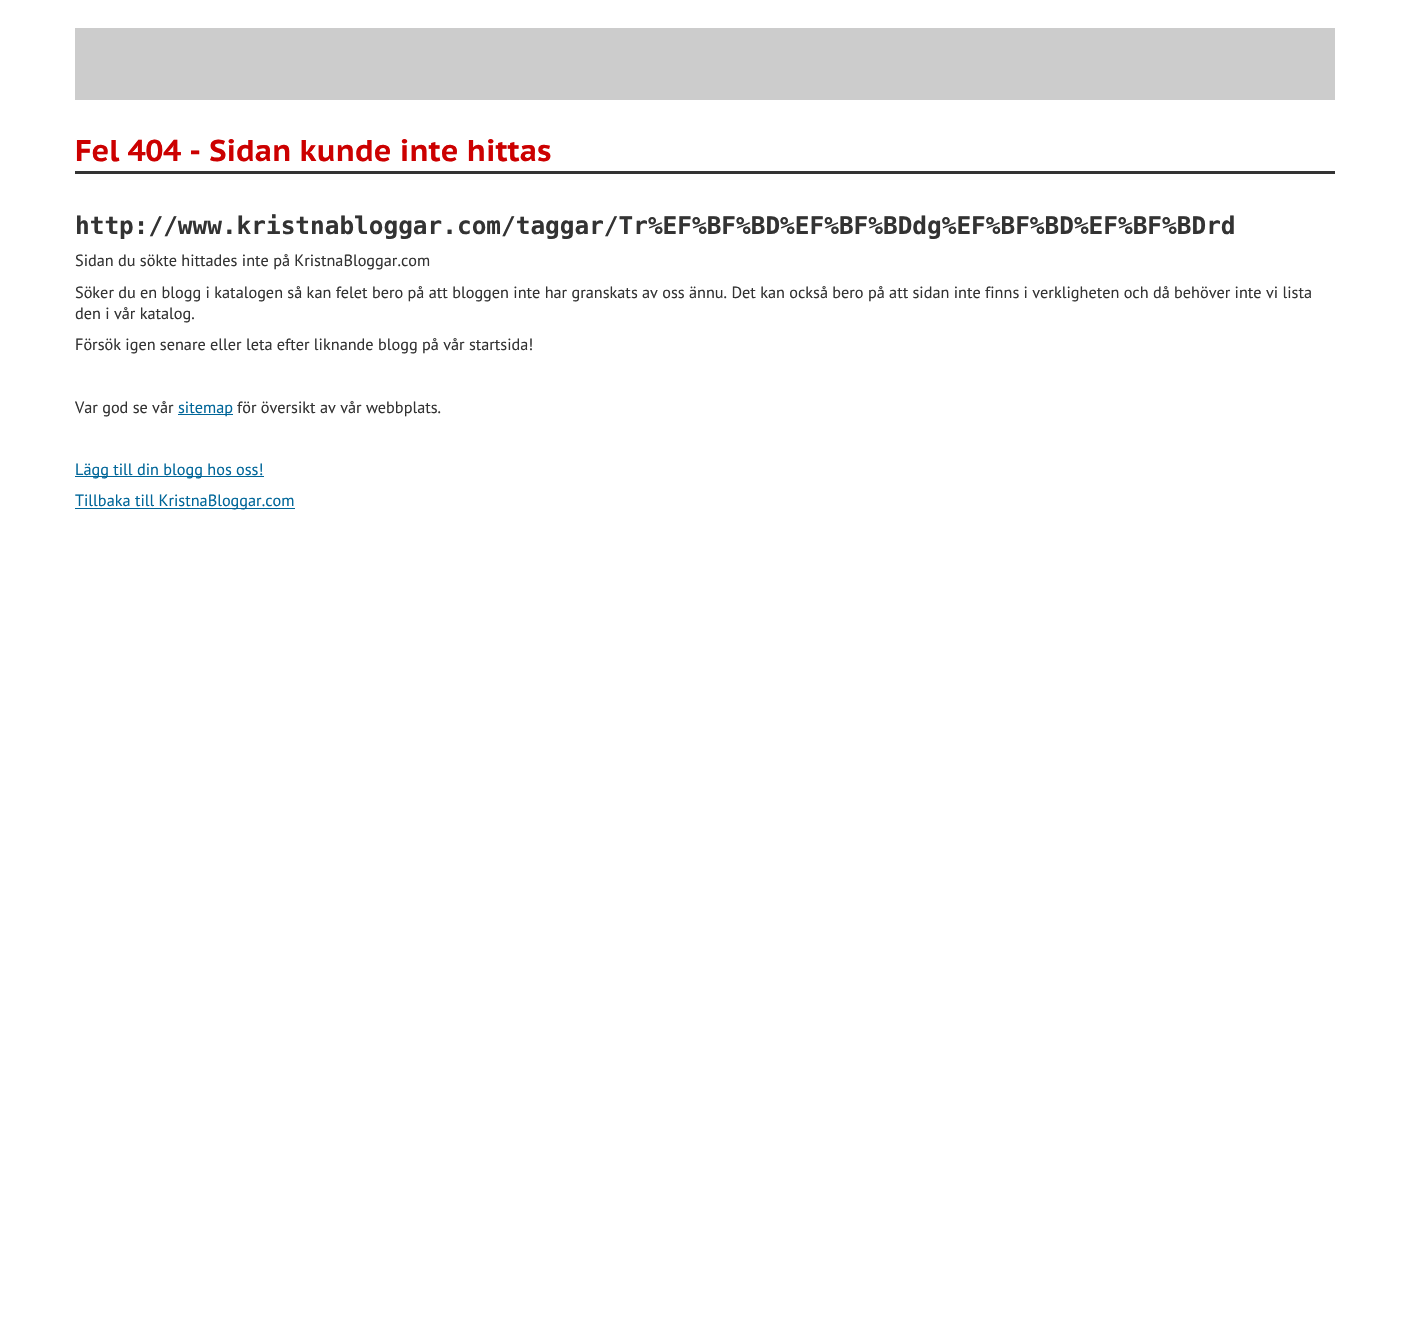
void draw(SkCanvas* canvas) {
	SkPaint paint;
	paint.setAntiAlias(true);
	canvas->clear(0xffffffff);
	paint.setColor(0xffcccccc);
	canvas->drawRect(SkRect::MakeXYWH(75, 28, 1260, 72), paint);
	paint.setColor(0xff333333);
	canvas->drawRect(SkRect::MakeXYWH(75, 171, 1260, 3), paint);
	SkFont f1(fontMgr->matchFamilyStyle("PT Sans Caption", SkFontStyle::Bold()), 30);
	f1.setSubpixel(true);
	paint.setColor(0xffcc0000);
	canvas->drawString("Fel 404 - Sidan kunde inte hittas", 75, 161, f1, paint);
	SkFont f2(fontMgr->matchFamilyStyle("DejaVu Sans Mono", SkFontStyle::Bold()), 24.4);
	f2.setSubpixel(true);
	paint.setColor(0xff333333);
	canvas->drawString("http://www.kristnabloggar.com/taggar/Tr%EF%BF%BD%EF%BF%BDdg%EF%BF%BD%EF%BF%BDrd", 75, 234, f2, paint);
	SkFont f3(fontMgr->matchFamilyStyle("PT Sans", SkFontStyle::Normal()), 16.25);
	f3.setSubpixel(true);
	canvas->drawString("Sidan du sökte hittades inte på KristnaBloggar.com", 75, 266, f3, paint);
	canvas->drawString("Söker du en blogg i katalogen så kan felet bero på att bloggen inte har granskats av oss ännu. Det kan också bero på att sidan inte finns i verkligheten och då behöver inte vi lista", 75, 298, f3, paint);
	canvas->drawString("den i vår katalog.", 75, 319, f3, paint);
	canvas->drawString("Försök igen senare eller leta efter liknande blogg på vår startsida!", 75, 350, f3, paint);
	canvas->drawString("Var god se vår", 75, 413, f3, paint);
	paint.setColor(0xff006699);
	canvas->drawRect(SkRect::MakeXYWH(178, 414, 55, 1), paint);
	canvas->drawString("sitemap", 178, 413, f3, paint);
	paint.setColor(0xff333333);
	canvas->drawString("för översikt av vår webbplats.", 237, 413, f3, paint);
	paint.setColor(0xff006699);
	canvas->drawRect(SkRect::MakeXYWH(75, 476, 189, 1), paint);
	canvas->drawString("Lägg till din blogg hos oss!", 75, 475, f3, paint);
	canvas->drawRect(SkRect::MakeXYWH(75, 508, 220, 1), paint);
	canvas->drawString("Tillbaka till KristnaBloggar.com", 75, 506, f3, paint);
}
